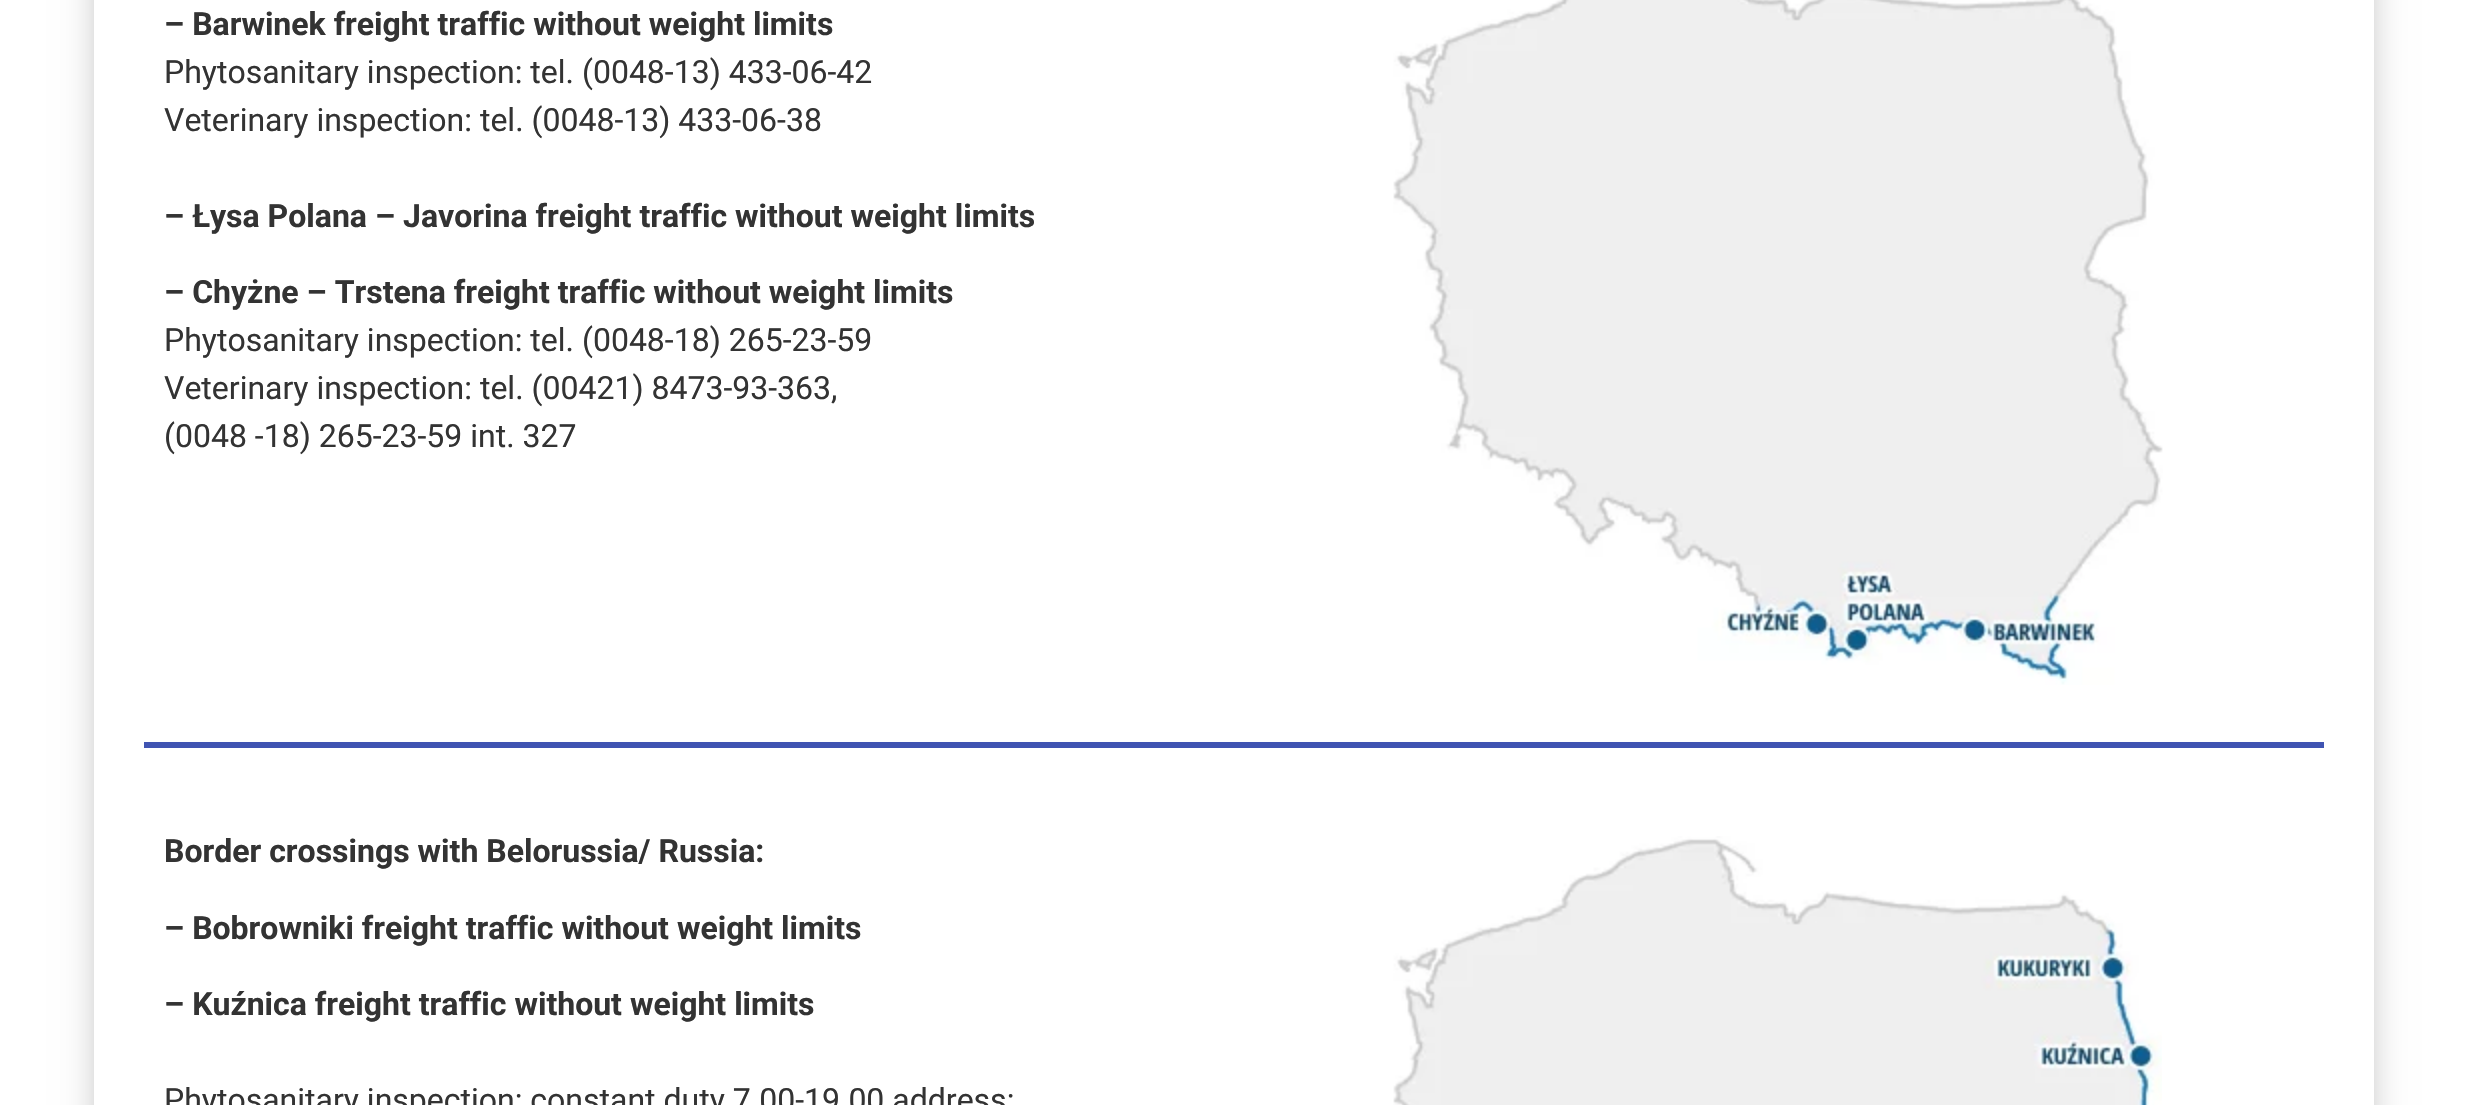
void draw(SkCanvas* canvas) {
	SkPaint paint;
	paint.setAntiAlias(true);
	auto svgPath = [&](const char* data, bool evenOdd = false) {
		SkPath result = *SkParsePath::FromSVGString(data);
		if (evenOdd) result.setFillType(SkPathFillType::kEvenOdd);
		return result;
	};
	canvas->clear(0xffffffff);
	canvas->save();
	canvas->clipPath(svgPath("M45 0H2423V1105H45ZM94-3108H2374V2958H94Z", true), true);
	paint.setColor(0x5e000000);
	paint.setMaskFilter(SkMaskFilter::MakeBlur(kNormal_SkBlurStyle, 20));
	canvas->drawRect(SkRect::MakeXYWH(106, -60, 2256, 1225), paint);
	paint.setMaskFilter(nullptr);
	canvas->restore();
	SkFont f1(fontMgr->matchFamilyStyle("Roboto", SkFontStyle::Bold()), 32);
	f1.setSubpixel(true);
	paint.setColor(0xff333333);
	canvas->drawString("– Barwinek freight traffic without weight limits", 164, 35, f1, paint);
	SkFont f2(fontMgr->matchFamilyStyle("Roboto", SkFontStyle::Normal()), 32);
	f2.setSubpixel(true);
	canvas->drawString("Phytosanitary inspection: tel. (0048-13) 433-06-42", 164, 83, f2, paint);
	canvas->drawString("Veterinary inspection: tel. (0048-13) 433-06-38", 164, 131, f2, paint);
	canvas->drawString("– Łysa Polana – Javorina freight traffic without weight limits", 164, 227, f1, paint);
	canvas->drawString("– Chyżne – Trstena freight traffic without weight limits", 164, 303, f1, paint);
	canvas->drawString("Phytosanitary inspection: tel. (0048-18) 265-23-59", 164, 351, f2, paint);
	canvas->drawString("Veterinary inspection: tel. (00421) 8473-93-363,", 164, 399, f2, paint);
	canvas->drawString("(0048 -18) 265-23-59 int. 327", 164, 447, f2, paint);
	canvas->drawImageRect(SkImages::DeferredFromEncodedData(SkData::MakeFromFileName("img1.png")), SkRect::MakeXYWH(1393, 0, 770, 685), SkSamplingOptions());
	paint.setColor(0xff4054b2);
	canvas->drawRect(SkRect::MakeXYWH(144, 742, 2180, 6), paint);
	paint.setColor(0xff333333);
	canvas->drawString("Border crossings with Belorussia/ Russia:", 164, 862, f1, paint);
	canvas->drawString("– Bobrowniki freight traffic without weight limits", 164, 939, f1, paint);
	canvas->drawString("– Kuźnica freight traffic without weight limits", 164, 1015, f1, paint);
	canvas->drawString("Phytosanitary inspection: constant duty 7.00-19.00 address:", 164, 1111, f2, paint);
	canvas->drawImageRect(SkImages::DeferredFromEncodedData(SkData::MakeFromFileName("img2.png")), SkRect::MakeXYWH(1393, 836, 769, 269), SkSamplingOptions());
}
